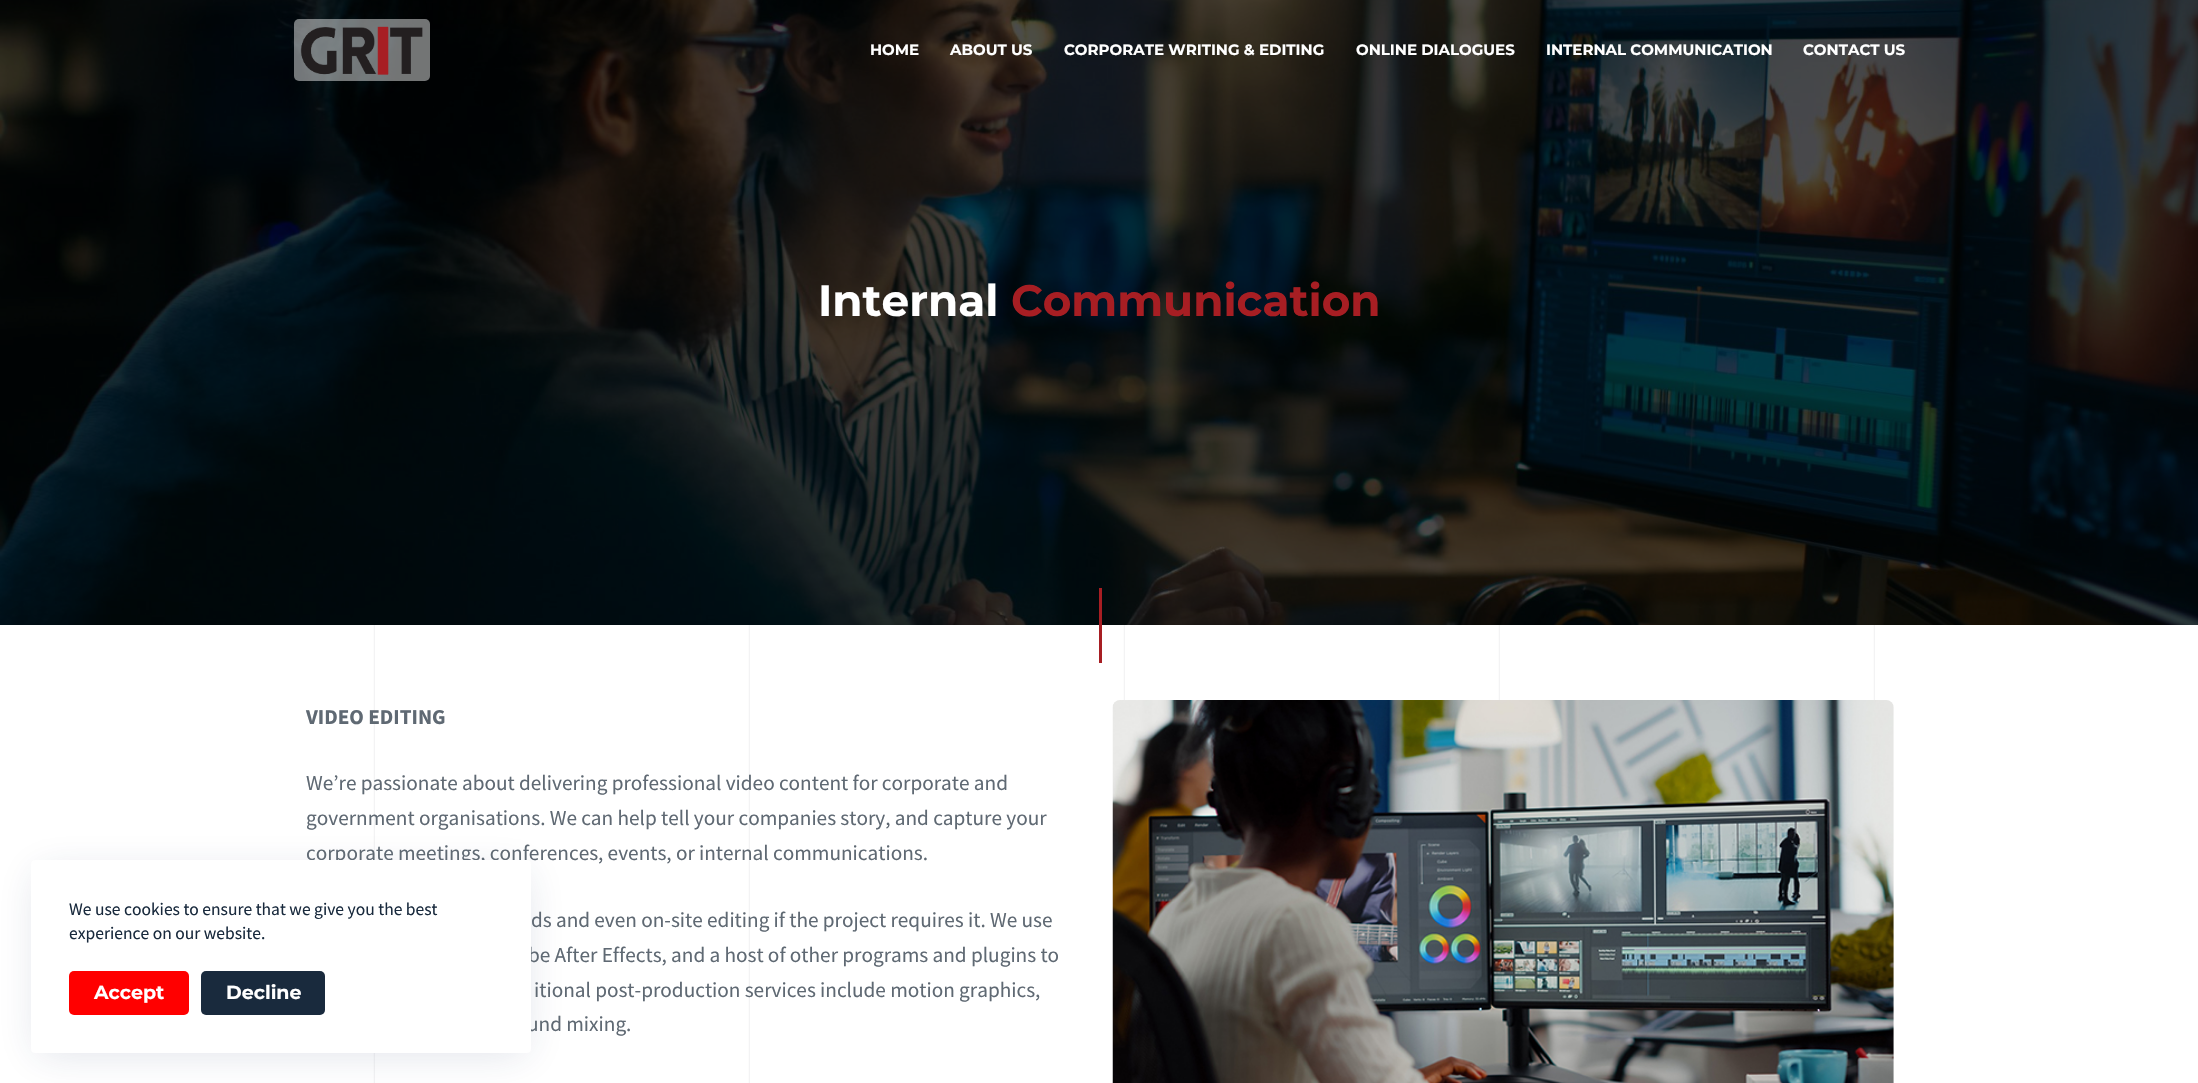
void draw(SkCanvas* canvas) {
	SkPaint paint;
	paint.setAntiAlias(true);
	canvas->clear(0xffffffff);
	canvas->drawImageRect(SkImages::DeferredFromEncodedData(SkData::MakeFromFileName("img1.png")), SkRect::MakeXYWH(0, 625, 2198, 458), SkSamplingOptions());
	paint.setColor(0x26223865);
	paint.setMaskFilter(SkMaskFilter::MakeBlur(kNormal_SkBlurStyle, 19));
	canvas->drawRect(SkRect::MakeXYWH(38, 873, 487, 180), paint);
	paint.setMaskFilter(nullptr);
	SkFont f1(fontMgr->matchFamilyStyle("Source Sans Pro", SkFontStyle::Normal()), 21.25);
	f1.setSubpixel(true);
	paint.setColor(0xff5f6973);
	canvas->drawString("corporate meetings, conferences, events, or internal communications.", 306, 860, f1, paint);
	canvas->drawString("be After Effects, and a host of other programs and plugins to", 528, 962, f1, paint);
	canvas->drawString("und mixing.", 527, 1031, f1, paint);
	paint.setColor(0xffffffff);
	canvas->drawRoundRect(SkRect::MakeXYWH(31, 860, 500, 193), 4, 4, paint);
	SkFont f2(fontMgr->matchFamilyStyle("Source Sans Pro", SkFontStyle::Normal()), 17.5);
	f2.setSubpixel(true);
	paint.setColor(0xff192a3d);
	canvas->drawString("We use cookies to ensure that we give you the best", 69, 915, f2, paint);
	canvas->drawString("experience on our website.", 69, 939, f2, paint);
	paint.setColor(0xffff0000);
	canvas->drawRoundRect(SkRect::MakeXYWH(69, 971, 120, 44), 5, 5, paint);
	SkFont f3(fontMgr->matchFamilyStyle("Montserrat", SkFontStyle::Bold()), 19);
	f3.setSubpixel(true);
	paint.setColor(0xffffffff);
	canvas->drawString("Accept", 94, 999, f3, paint);
	paint.setColor(0xff192a3d);
	canvas->drawRoundRect(SkRect::MakeXYWH(201, 971, 124, 44), 5, 5, paint);
	paint.setColor(0xffffffff);
	canvas->drawString("Decline", 226, 999, f3, paint);
	canvas->drawImageRect(SkImages::DeferredFromEncodedData(SkData::MakeFromFileName("img3.png")), SkRect::MakeXYWH(0, 0, 2198, 625), SkSamplingOptions());
	paint.setColor(0x73ffffff);
	canvas->drawRoundRect(SkRect::MakeXYWH(294, 19, 136, 62), 5, 5, paint);
	canvas->drawImageRect(SkImages::DeferredFromEncodedData(SkData::MakeFromFileName("img2.png")), SkRect::MakeXYWH(300, 26, 123, 49), SkSamplingOptions());
	SkFont f4(fontMgr->matchFamilyStyle("Montserrat", SkFontStyle::Bold()), 15);
	f4.setSubpixel(true);
	paint.setColor(0xffffffff);
	canvas->drawString("HOME", 870, 55, f4, paint);
	canvas->drawString("ABOUT US", 950, 55, f4, paint);
	canvas->drawString("CORPORATE WRITING & EDITING", 1064, 55, f4, paint);
	canvas->drawString("ONLINE DIALOGUES", 1356, 55, f4, paint);
	canvas->drawString("INTERNAL COMMUNICATION", 1546, 55, f4, paint);
	canvas->drawString("CONTACT US", 1803, 55, f4, paint);
	SkFont f5(fontMgr->matchFamilyStyle("Montserrat", SkFontStyle::Bold()), 43.75);
	f5.setSubpixel(true);
	canvas->drawString("Internal", 818, 316, f5, paint);
	paint.setColor(0xffa71e23);
	canvas->drawString("Communication", 1011, 316, f5, paint);
	canvas->drawRect(SkRect::MakeXYWH(1099, 588, 3, 75), paint);
	SkFont f6(fontMgr->matchFamilyStyle("Source Sans Pro", SkFontStyle::Bold()), 21.25);
	f6.setSubpixel(true);
	paint.setColor(0xff5f6973);
	canvas->drawString("VIDEO EDITING", 306, 724, f6, paint);
	canvas->drawString("We’re passionate about delivering professional video content for corporate and", 306, 790, f1, paint);
	canvas->drawString("government organisations. We can help tell your companies story, and capture your", 306, 825, f1, paint);
	canvas->drawString("ds and even on-site editing if the project requires it. We use", 531, 927, f1, paint);
	canvas->drawString("itional post-production services include motion graphics,", 534, 997, f1, paint);
	canvas->drawImageRect(SkImages::DeferredFromEncodedData(SkData::MakeFromFileName("img4.png")), SkRect::MakeXYWH(1112, 700, 782, 383), SkSamplingOptions());
}
